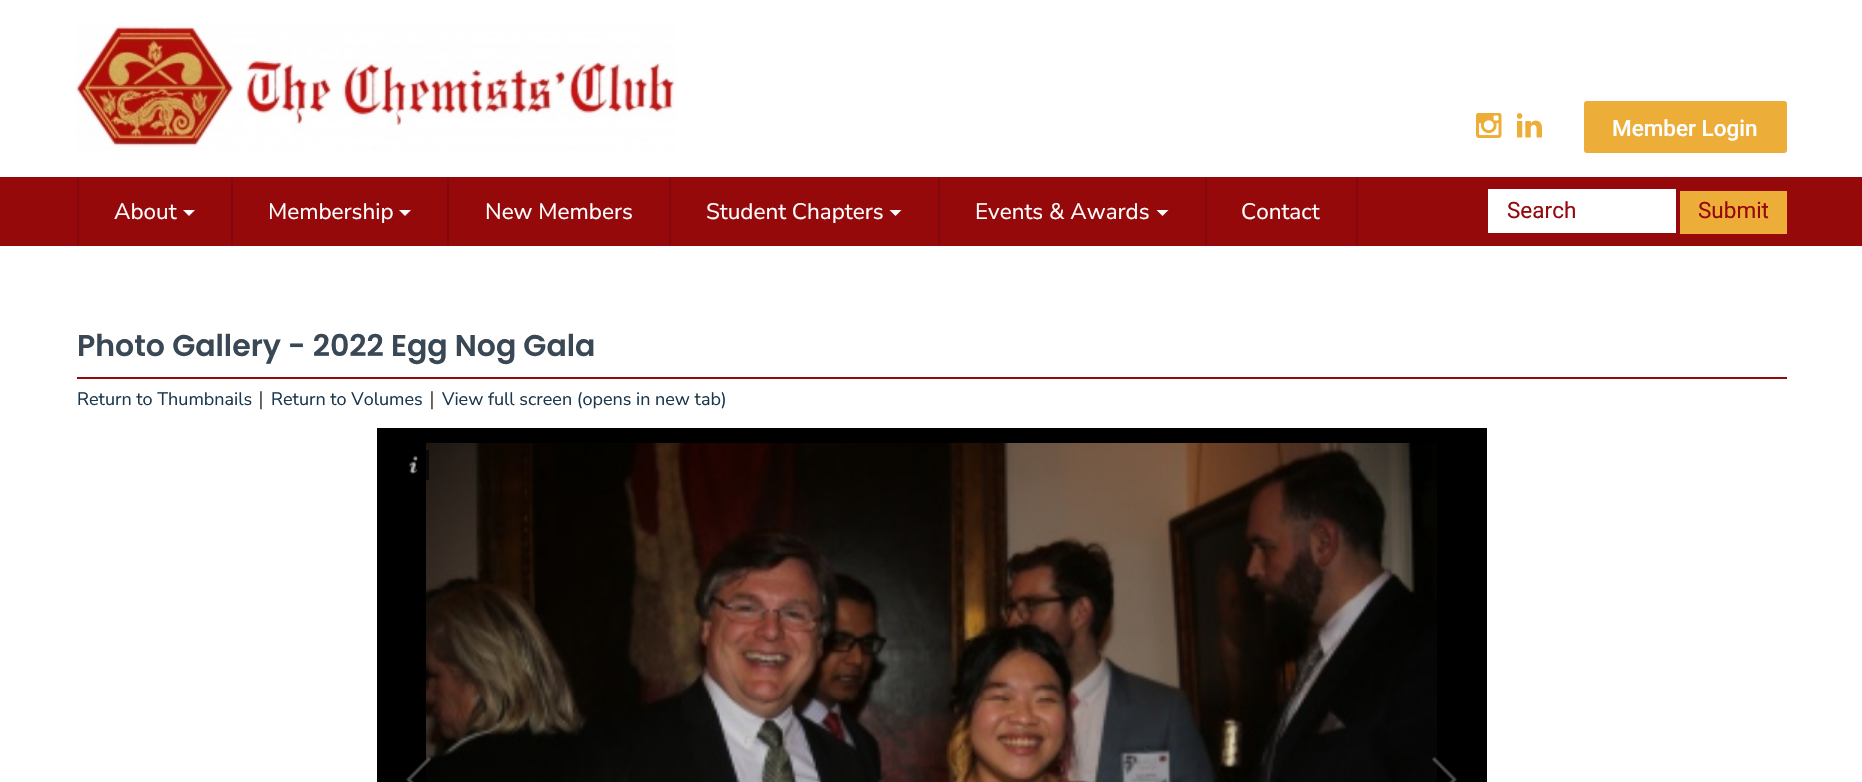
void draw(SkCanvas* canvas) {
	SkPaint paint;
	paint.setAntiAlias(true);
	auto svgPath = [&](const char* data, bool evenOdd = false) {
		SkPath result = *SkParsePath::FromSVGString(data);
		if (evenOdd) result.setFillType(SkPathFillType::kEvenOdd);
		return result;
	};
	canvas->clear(0xffffffff);
	canvas->drawImageRect(SkImages::DeferredFromEncodedData(SkData::MakeFromFileName("img1.png")), SkRect::MakeXYWH(76, 23, 600, 128), SkSamplingOptions());
	canvas->drawImageRect(SkImages::DeferredFromEncodedData(SkData::MakeFromFileName("img2.png")), SkRect::MakeXYWH(1476, 113, 26, 25), SkSamplingOptions());
	canvas->drawImageRect(SkImages::DeferredFromEncodedData(SkData::MakeFromFileName("img3.png")), SkRect::MakeXYWH(1517, 113, 25, 25), SkSamplingOptions());
	paint.setColor(0xffedad39);
	canvas->drawRoundRect(SkRect::MakeXYWH(1585, 102, 201, 50), 2, 2, paint);
	paint.setStroke(true);
	paint.setStrokeWidth(2);
	canvas->drawRoundRect(SkRect::MakeXYWH(1585, 102, 201, 50), 2, 2, paint);
	SkFont f1(fontMgr->matchFamilyStyle("Roboto", SkFontStyle(500, SkFontStyle::kNormal_Width, SkFontStyle::kUpright_Slant)), 22.5);
	f1.setSubpixel(true);
	paint.setStroke(false);
	paint.setColor(0xffffffff);
	canvas->drawString("Member Login", 1612, 136, f1, paint);
	paint.setColor(0xff95090b);
	canvas->drawRect(SkRect::MakeXYWH(0, 177, 1862, 69), paint);
	paint.setColor(0xff82080e);
	canvas->drawRect(SkRect::MakeXYWH(77, 177, 2, 69), paint);
	SkFont f2(fontMgr->matchFamilyStyle("Nunito Sans", SkFontStyle::Normal()), 22.5);
	f2.setSubpixel(true);
	paint.setColor(0xffffffff);
	canvas->drawString("About", 114, 219, f2, paint);
	canvas->drawPath(svgPath("M183 210H195L189 216Z"), paint);
	paint.setColor(0xff82080e);
	canvas->drawRect(SkRect::MakeXYWH(231, 177, 2, 69), paint);
	paint.setColor(0xffffffff);
	canvas->drawString("Membership", 268, 219, f2, paint);
	canvas->drawPath(svgPath("M399 210H411L405 216Z"), paint);
	paint.setColor(0xff82080e);
	canvas->drawRect(SkRect::MakeXYWH(447, 177, 2, 69), paint);
	paint.setColor(0xffffffff);
	canvas->drawString("New Members", 485, 219, f2, paint);
	paint.setColor(0xff82080e);
	canvas->drawRect(SkRect::MakeXYWH(669, 177, 2, 69), paint);
	paint.setColor(0xffffffff);
	canvas->drawString("Student Chapters", 706, 219, f2, paint);
	canvas->drawPath(svgPath("M889.5 210H901.5L895.5 216Z"), paint);
	paint.setColor(0xff82080e);
	canvas->drawRect(SkRect::MakeXYWH(938, 177, 2, 69), paint);
	paint.setColor(0xffffffff);
	canvas->drawString("Events & Awards", 975, 219, f2, paint);
	canvas->drawPath(svgPath("M1156.5 210H1168.5L1162.5 216Z"), paint);
	paint.setColor(0xff82080e);
	canvas->drawRect(SkRect::MakeXYWH(1356, 177, 2, 69), paint);
	canvas->drawRect(SkRect::MakeXYWH(1205, 177, 2, 69), paint);
	paint.setColor(0xffffffff);
	canvas->drawString("Contact", 1241, 219, f2, paint);
	canvas->drawRect(SkRect::MakeXYWH(1488, 189, 188, 44), paint);
	SkFont f3(fontMgr->matchFamilyStyle("Roboto", SkFontStyle::Normal()), 22.5);
	f3.setSubpixel(true);
	paint.setColor(0xff95090b);
	canvas->drawString("Search", 1507, 218, f3, paint);
	paint.setColor(0xffedad39);
	canvas->drawRect(SkRect::MakeXYWH(1680, 191, 107, 43), paint);
	paint.setColor(0xff95090b);
	canvas->drawString("Submit", 1698, 218, f3, paint);
	canvas->drawRect(SkRect::MakeXYWH(77, 377, 1710, 2), paint);
	SkFont f4(fontMgr->matchFamilyStyle("Poppins", SkFontStyle(600, SkFontStyle::kNormal_Width, SkFontStyle::kUpright_Slant)), 30);
	f4.setSubpixel(true);
	paint.setColor(0xff394854);
	canvas->drawString("Photo Gallery - 2022 Egg Nog Gala", 77, 356, f4, paint);
	SkFont f5(fontMgr->matchFamilyStyle("Nunito Sans", SkFontStyle::Normal()), 18);
	f5.setSubpixel(true);
	paint.setColor(0xff1b374c);
	canvas->drawString("Return to Thumbnails", 77, 405, f5, paint);
	SkFont f6(fontMgr->matchFamilyStyle("Noto Sans", SkFontStyle::Normal()), 18);
	f6.setSubpixel(true);
	paint.setColor(0xff333333);
	canvas->drawString("|", 256, 405, f6, paint);
	paint.setColor(0xff1b374c);
	canvas->drawString("Return to Volumes", 271, 405, f5, paint);
	paint.setColor(0xff333333);
	canvas->drawString("|", 427, 405, f6, paint);
	paint.setColor(0xff1b374c);
	canvas->drawString("View full screen (opens in new tab)", 442, 405, f5, paint);
	paint.setColor(0xff000000);
	canvas->drawRect(SkRect::MakeXYWH(377, 428, 1110, 354), paint);
	canvas->drawImageRect(SkImages::DeferredFromEncodedData(SkData::MakeFromFileName("img4.png")), SkRect::MakeXYWH(426, 443, 1011, 339), SkSamplingOptions());
	canvas->drawImageRect(SkImages::DeferredFromEncodedData(SkData::MakeFromFileName("img5.png")), SkRect::MakeXYWH(406, 757, 25, 25), SkSamplingOptions());
	canvas->drawImageRect(SkImages::DeferredFromEncodedData(SkData::MakeFromFileName("img6.png")), SkRect::MakeXYWH(1432, 757, 25, 25), SkSamplingOptions());
	paint.setColor(0xb3000000);
	canvas->drawRect(SkRect::MakeXYWH(426, 450, 3, 30), paint);
	canvas->drawImageRect(SkImages::DeferredFromEncodedData(SkData::MakeFromFileName("img7.png")), SkRect::MakeXYWH(408, 455, 10, 20), SkSamplingOptions());
}
